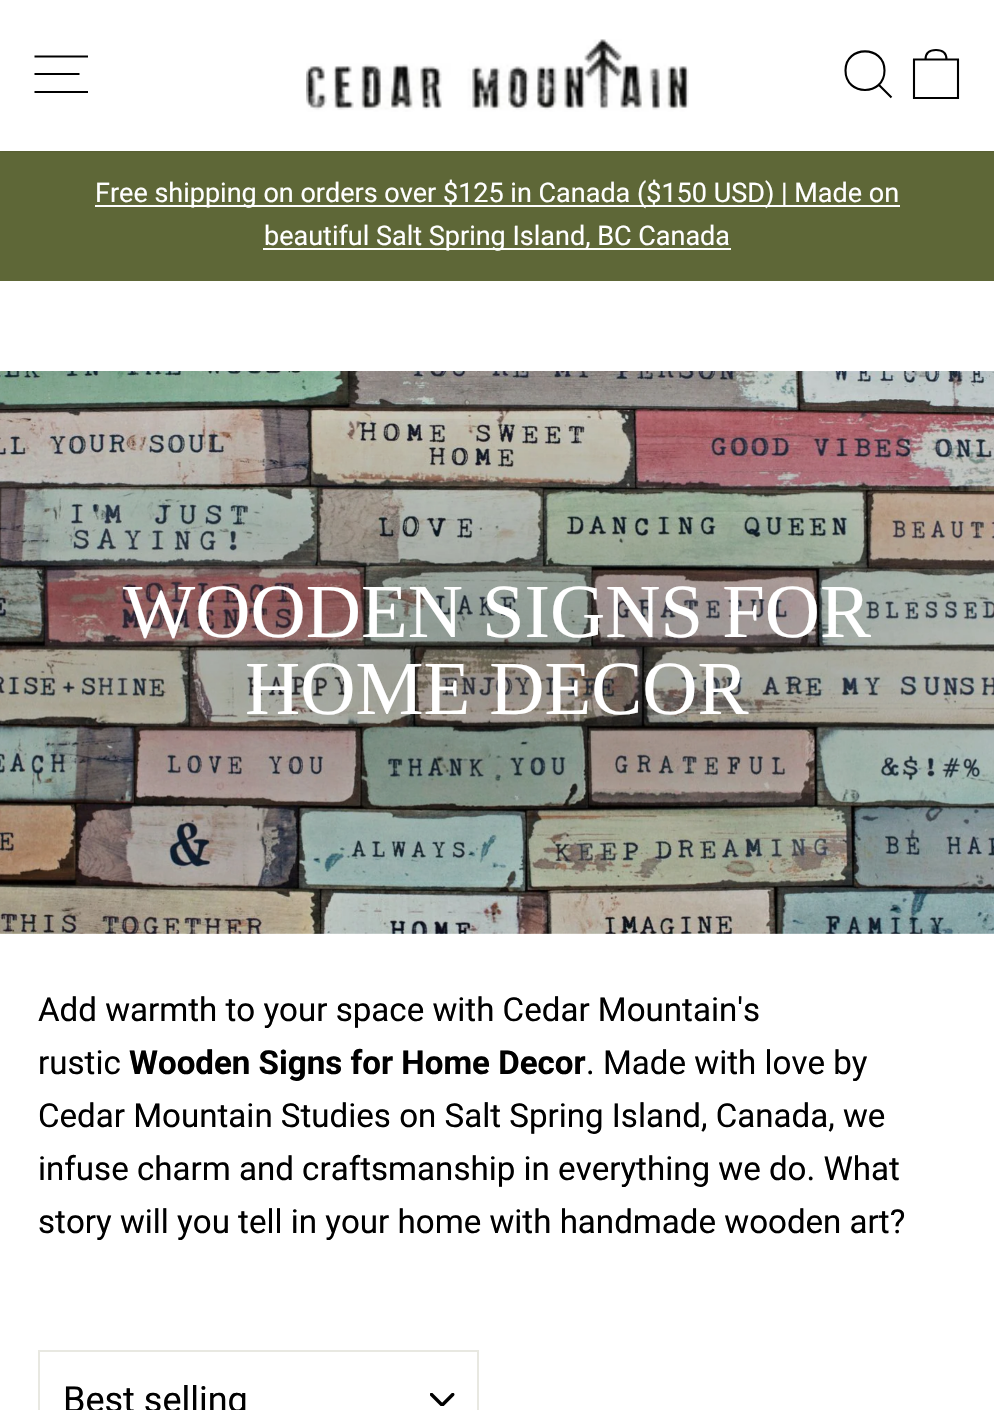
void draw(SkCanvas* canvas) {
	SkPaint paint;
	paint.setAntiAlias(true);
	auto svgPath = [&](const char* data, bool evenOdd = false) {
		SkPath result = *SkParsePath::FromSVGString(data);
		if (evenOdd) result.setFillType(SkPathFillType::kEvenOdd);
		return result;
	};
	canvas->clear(0xffffffff);
	paint.setColor(0xff5e6737);
	canvas->drawRect(SkRect::MakeXYWH(0, 151, 994, 130), paint);
	paint.setColor(0x33000000);
	paint.setMaskFilter(SkMaskFilter::MakeBlur(kNormal_SkBlurStyle, 1));
	canvas->drawRect(SkRect::MakeXYWH(0, 0, 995, 151), paint);
	paint.setMaskFilter(nullptr);
	paint.setColor(0xffffffff);
	canvas->drawRect(SkRect::MakeXYWH(0, 0, 994, 151), paint);
	paint.setStroke(true);
	paint.setStrokeWidth(2.1);
	paint.setColor(0xff000000);
	canvas->drawPath(svgPath("M34.5 56.5H88M34.5 74H79.5M34.5 92H88"), paint);
	canvas->drawImageRect(SkImages::DeferredFromEncodedData(SkData::MakeFromFileName("img1.png")), SkRect::MakeXYWH(306, 39, 383, 73), SkSamplingOptions());
	canvas->drawPath(svgPath("M884.5 70.5C884.5 96.5 845.5 96.5 845.5 70.5C845.5 45 884.5 45 884.5 70.5ZM891.5 97.5L879 85"), paint);
	canvas->drawPath(svgPath("M914 59.5H958V98H914ZM925.5 59.5C925.5 52 930.5 50 936 50C941.5 50 946.5 52 946.5 59.5"), paint);
	paint.setStroke(false);
	paint.setColor(0xffffffff);
	canvas->drawRect(SkRect::MakeXYWH(95, 205, 805, 2), paint);
	SkFont f1(fontMgr->matchFamilyStyle("Roboto", SkFontStyle::Normal()), 27);
	f1.setSubpixel(true);
	canvas->drawString("Free shipping on orders over $125 in Canada ($150 USD) | Made on", 95, 202, f1, paint);
	canvas->drawRect(SkRect::MakeXYWH(263, 248, 468, 2), paint);
	canvas->drawString("beautiful Salt Spring Island, BC Canada", 264, 245, f1, paint);
	canvas->drawImageRect(SkImages::DeferredFromEncodedData(SkData::MakeFromFileName("img2.png")), SkRect::MakeXYWH(0, 371, 994, 563), SkSamplingOptions());
	{
		const SkColor colors[] = {0x3b000000, 0x00000000};
		const float stops[] = {0, 0.6};
		SkMatrix m = SkMatrix::Translate(497, 650).preScale(1286, 426);
		paint.setShader(SkGradientShader::MakeRadial({0, 0}, 1, colors, stops, 2, SkTileMode::kClamp, 0, &m));
		paint.setAlpha(255);
	}
	canvas->drawRect(SkRect::MakeXYWH(0, 419, 994, 462), paint);
	SkFont f2(fontMgr->matchFamilyStyle("Liberation Serif", SkFontStyle::Normal()), 76.5);
	f2.setSubpixel(true);
	paint.setShader(nullptr);
	paint.setColor(0xffffffff);
	canvas->drawString("WOODEN SIGNS FOR", 123, 637, f2, paint);
	canvas->drawString("HOME DECOR", 245, 714, f2, paint);
	SkFont f3(fontMgr->matchFamilyStyle("Roboto", SkFontStyle::Normal()), 33.1);
	f3.setSubpixel(true);
	paint.setColor(0xff000000);
	canvas->drawString("Add warmth to your space with Cedar Mountain's", 38, 1021, f3, paint);
	canvas->drawString("rustic", 38, 1074, f3, paint);
	SkFont f4(fontMgr->matchFamilyStyle("Roboto", SkFontStyle::Bold()), 33.1);
	f4.setSubpixel(true);
	canvas->drawString("Wooden Signs for Home Decor", 129, 1074, f4, paint);
	canvas->drawString(". Made with love by", 586, 1074, f3, paint);
	canvas->drawString("Cedar Mountain Studies on Salt Spring Island, Canada, we", 38, 1127, f3, paint);
	canvas->drawString("infuse charm and craftsmanship in everything we do. What", 38, 1180, f3, paint);
	canvas->drawString("story will you tell in your home with handmade wooden art?", 38, 1233, f3, paint);
	canvas->drawImageRect(SkImages::DeferredFromEncodedData(SkData::MakeFromFileName("img3.png")), SkRect::MakeXYWH(430, 1393, 25, 13), SkSamplingOptions());
	paint.setStroke(true);
	paint.setStrokeWidth(2);
	paint.setColor(0xffe8e8e1);
	canvas->drawRect(SkRect::MakeXYWH(39, 1351, 439, 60), paint);
	SkFont f5(fontMgr->matchFamilyStyle("Roboto", SkFontStyle::Normal()), 36);
	f5.setSubpixel(true);
	paint.setStroke(false);
	paint.setColor(0xff000000);
	canvas->drawString("Best selling", 63, 1412, f5, paint);
}
